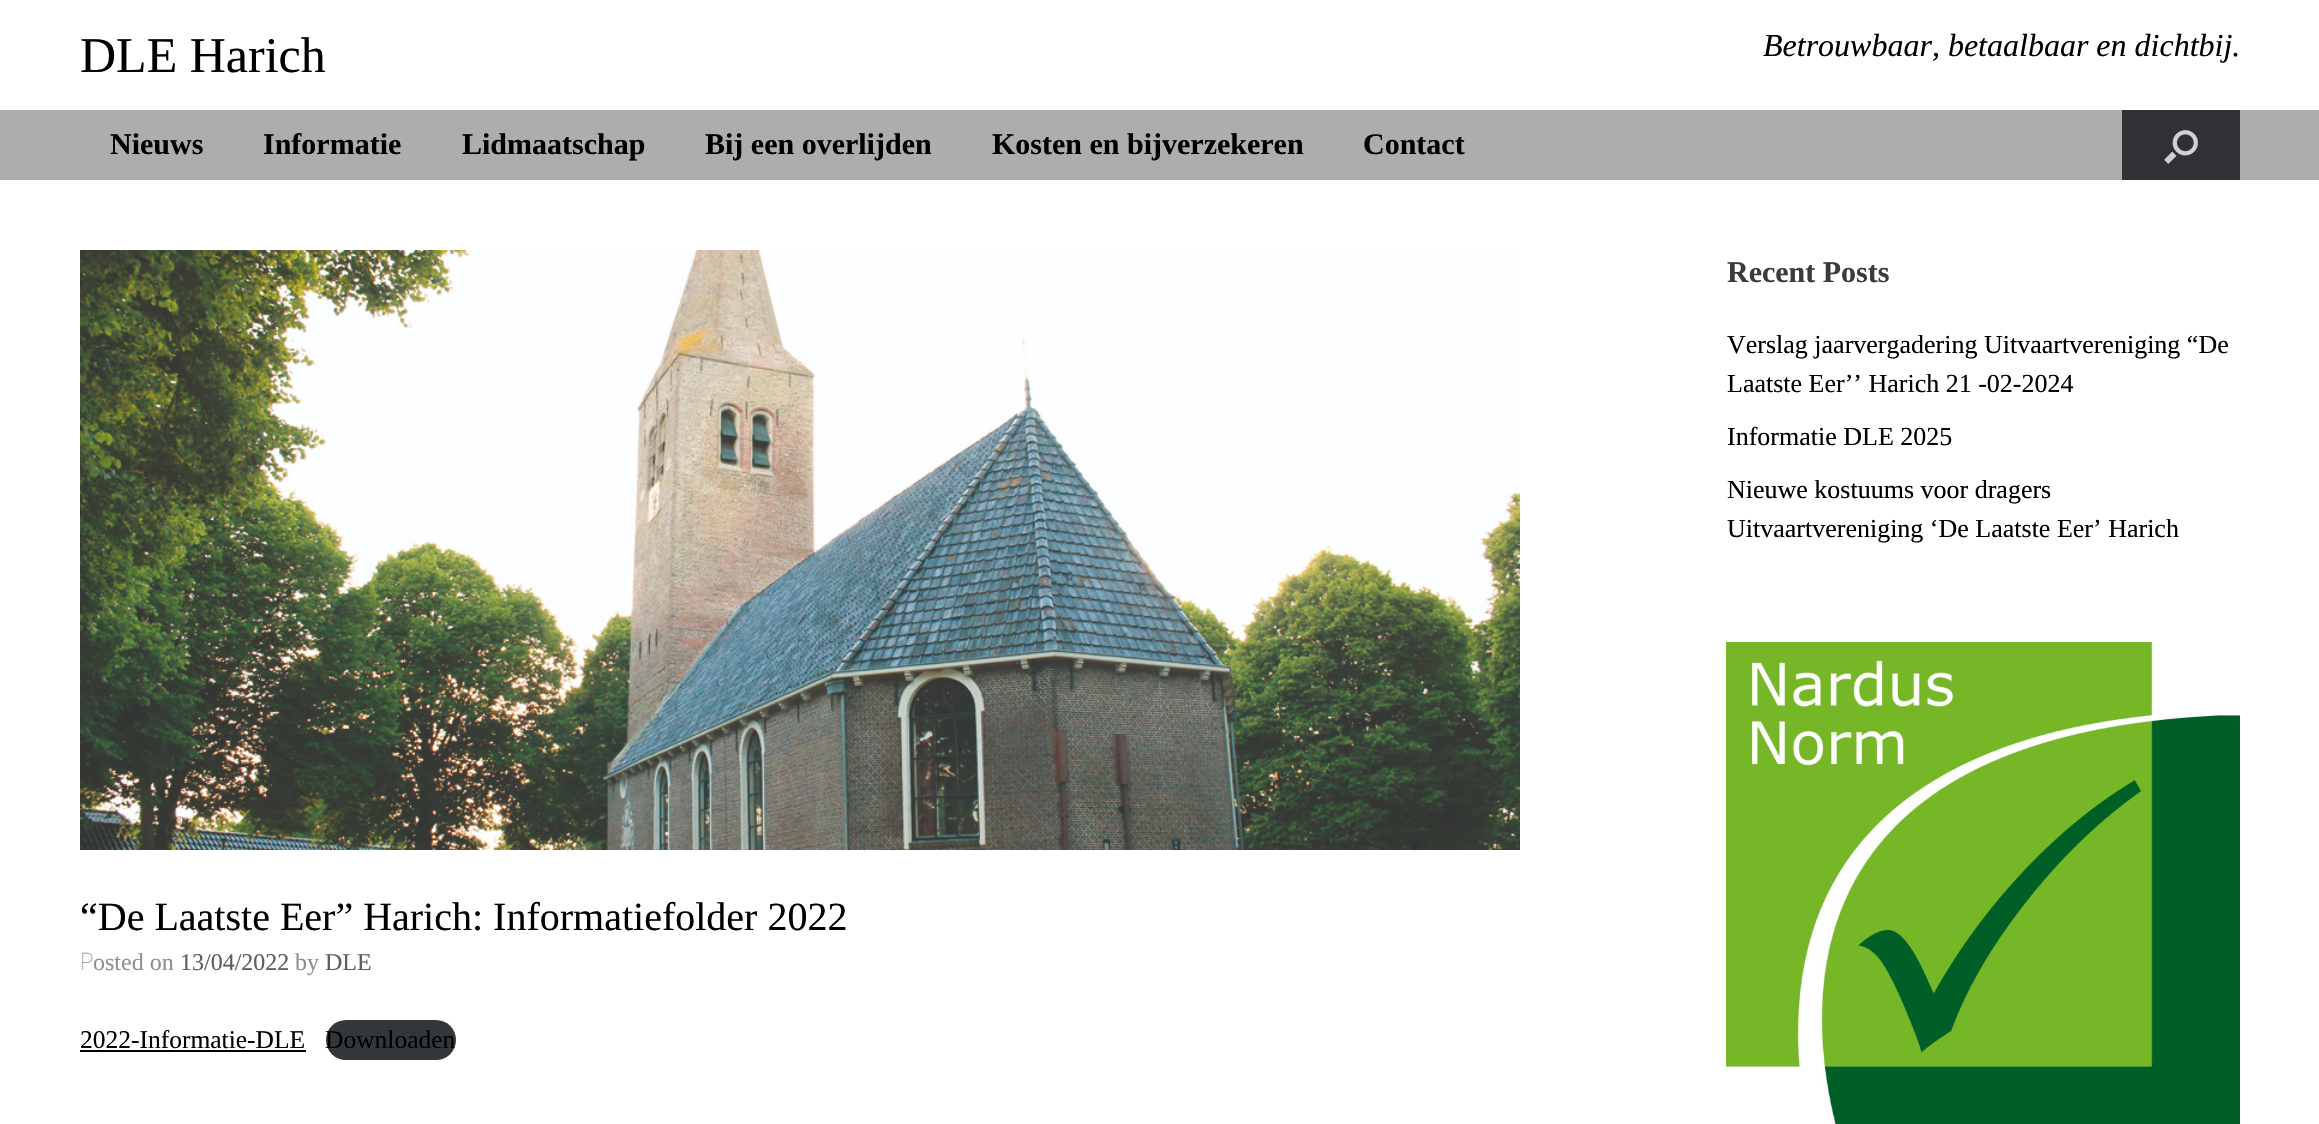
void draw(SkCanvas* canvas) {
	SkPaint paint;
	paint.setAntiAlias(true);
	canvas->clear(0xffffffff);
	SkFont f1(fontMgr->matchFamilyStyle("Liberation Serif", SkFontStyle::Normal()), 50);
	f1.setSubpixel(true);
	paint.setColor(0xff000000);
	canvas->drawString("DLE Harich", 80, 72, f1, paint);
	SkFont f2(fontMgr->matchFamilyStyle("Liberation Serif", SkFontStyle::Italic()), 32);
	f2.setSubpixel(true);
	canvas->drawString("Betrouwbaar, betaalbaar en dichtbij.", 1763, 56, f2, paint);
	paint.setColor(0xffadadad);
	canvas->drawRect(SkRect::MakeXYWH(0, 110, 2319, 70), paint);
	SkFont f3(fontMgr->matchFamilyStyle("Liberation Serif", SkFontStyle::Bold()), 30);
	f3.setSubpixel(true);
	paint.setColor(0xff000000);
	canvas->drawString("Nieuws", 110, 154, f3, paint);
	canvas->drawString("Informatie", 263, 154, f3, paint);
	canvas->drawString("Lidmaatschap", 462, 154, f3, paint);
	canvas->drawString("Bij een overlijden", 705, 154, f3, paint);
	canvas->drawString("Kosten en bijverzekeren", 992, 154, f3, paint);
	canvas->drawString("Contact", 1363, 154, f3, paint);
	paint.setColor(0xff303134);
	canvas->drawRect(SkRect::MakeXYWH(2122, 110, 118, 70), paint);
	canvas->drawImageRect(SkImages::DeferredFromEncodedData(SkData::MakeFromFileName("img1.png")), SkRect::MakeXYWH(2164, 130, 34, 34), SkSamplingOptions());
	paint.setColor(0xff3b3b3b);
	canvas->drawString("Recent Posts", 1727, 282, f3, paint);
	SkFont f4(fontMgr->matchFamilyStyle("Liberation Serif", SkFontStyle::Normal()), 26);
	f4.setSubpixel(true);
	paint.setColor(0xff000000);
	canvas->drawString("Verslag jaarvergadering Uitvaartvereniging “De", 1727, 353, f4, paint);
	canvas->drawString("Laatste Eer’’ Harich 21 -02-2024", 1727, 392, f4, paint);
	canvas->drawString("Informatie DLE 2025", 1727, 445, f4, paint);
	canvas->drawString("Nieuwe kostuums voor dragers", 1727, 498, f4, paint);
	canvas->drawString("Uitvaartvereniging ‘De Laatste Eer’ Harich", 1727, 537, f4, paint);
	canvas->drawImageRect(SkImages::DeferredFromEncodedData(SkData::MakeFromFileName("img2.png")), SkRect::MakeXYWH(1726, 642, 514, 482), SkSamplingOptions());
	canvas->drawImageRect(SkImages::DeferredFromEncodedData(SkData::MakeFromFileName("img3.png")), SkRect::MakeXYWH(80, 250, 1440, 600), SkSamplingOptions());
	SkFont f5(fontMgr->matchFamilyStyle("Liberation Serif", SkFontStyle::Normal()), 40);
	f5.setSubpixel(true);
	canvas->drawString("“De Laatste Eer” Harich: Informatiefolder 2022", 80, 930, f5, paint);
	SkFont f6(fontMgr->matchFamilyStyle("Noto Sans", SkFontStyle(100, SkFontStyle::kNormal_Width, SkFontStyle::kUpright_Slant)), 24);
	f6.setSubpixel(true);
	paint.setColor(0xff8f8f8f);
	canvas->drawString("P", 80, 970, f6, paint);
	SkFont f7(fontMgr->matchFamilyStyle("Liberation Serif", SkFontStyle::Normal()), 24);
	f7.setSubpixel(true);
	canvas->drawString("osted on", 93, 970, f7, paint);
	paint.setColor(0xff5e5e5e);
	canvas->drawString("13/04/2022", 180, 970, f7, paint);
	paint.setColor(0xff8f8f8f);
	canvas->drawString("by", 295, 970, f7, paint);
	paint.setColor(0xff5e5e5e);
	canvas->drawString("DLE", 325, 970, f7, paint);
	SkFont f8(fontMgr->matchFamilyStyle("Liberation Serif", SkFontStyle::Normal()), 25.5);
	f8.setSubpixel(true);
	paint.setColor(0xff000000);
	canvas->drawString("2022-Informatie-DLE", 80, 1048, f8, paint);
	canvas->drawRect(SkRect::MakeXYWH(80, 1050, 226, 2), paint);
	paint.setColor(0xff32373c);
	canvas->drawRoundRect(SkRect::MakeXYWH(326, 1020, 130, 40), 20, 20, paint);
	paint.setColor(0xff000000);
	canvas->drawString("Downloaden", 325, 1048, f8, paint);
}
